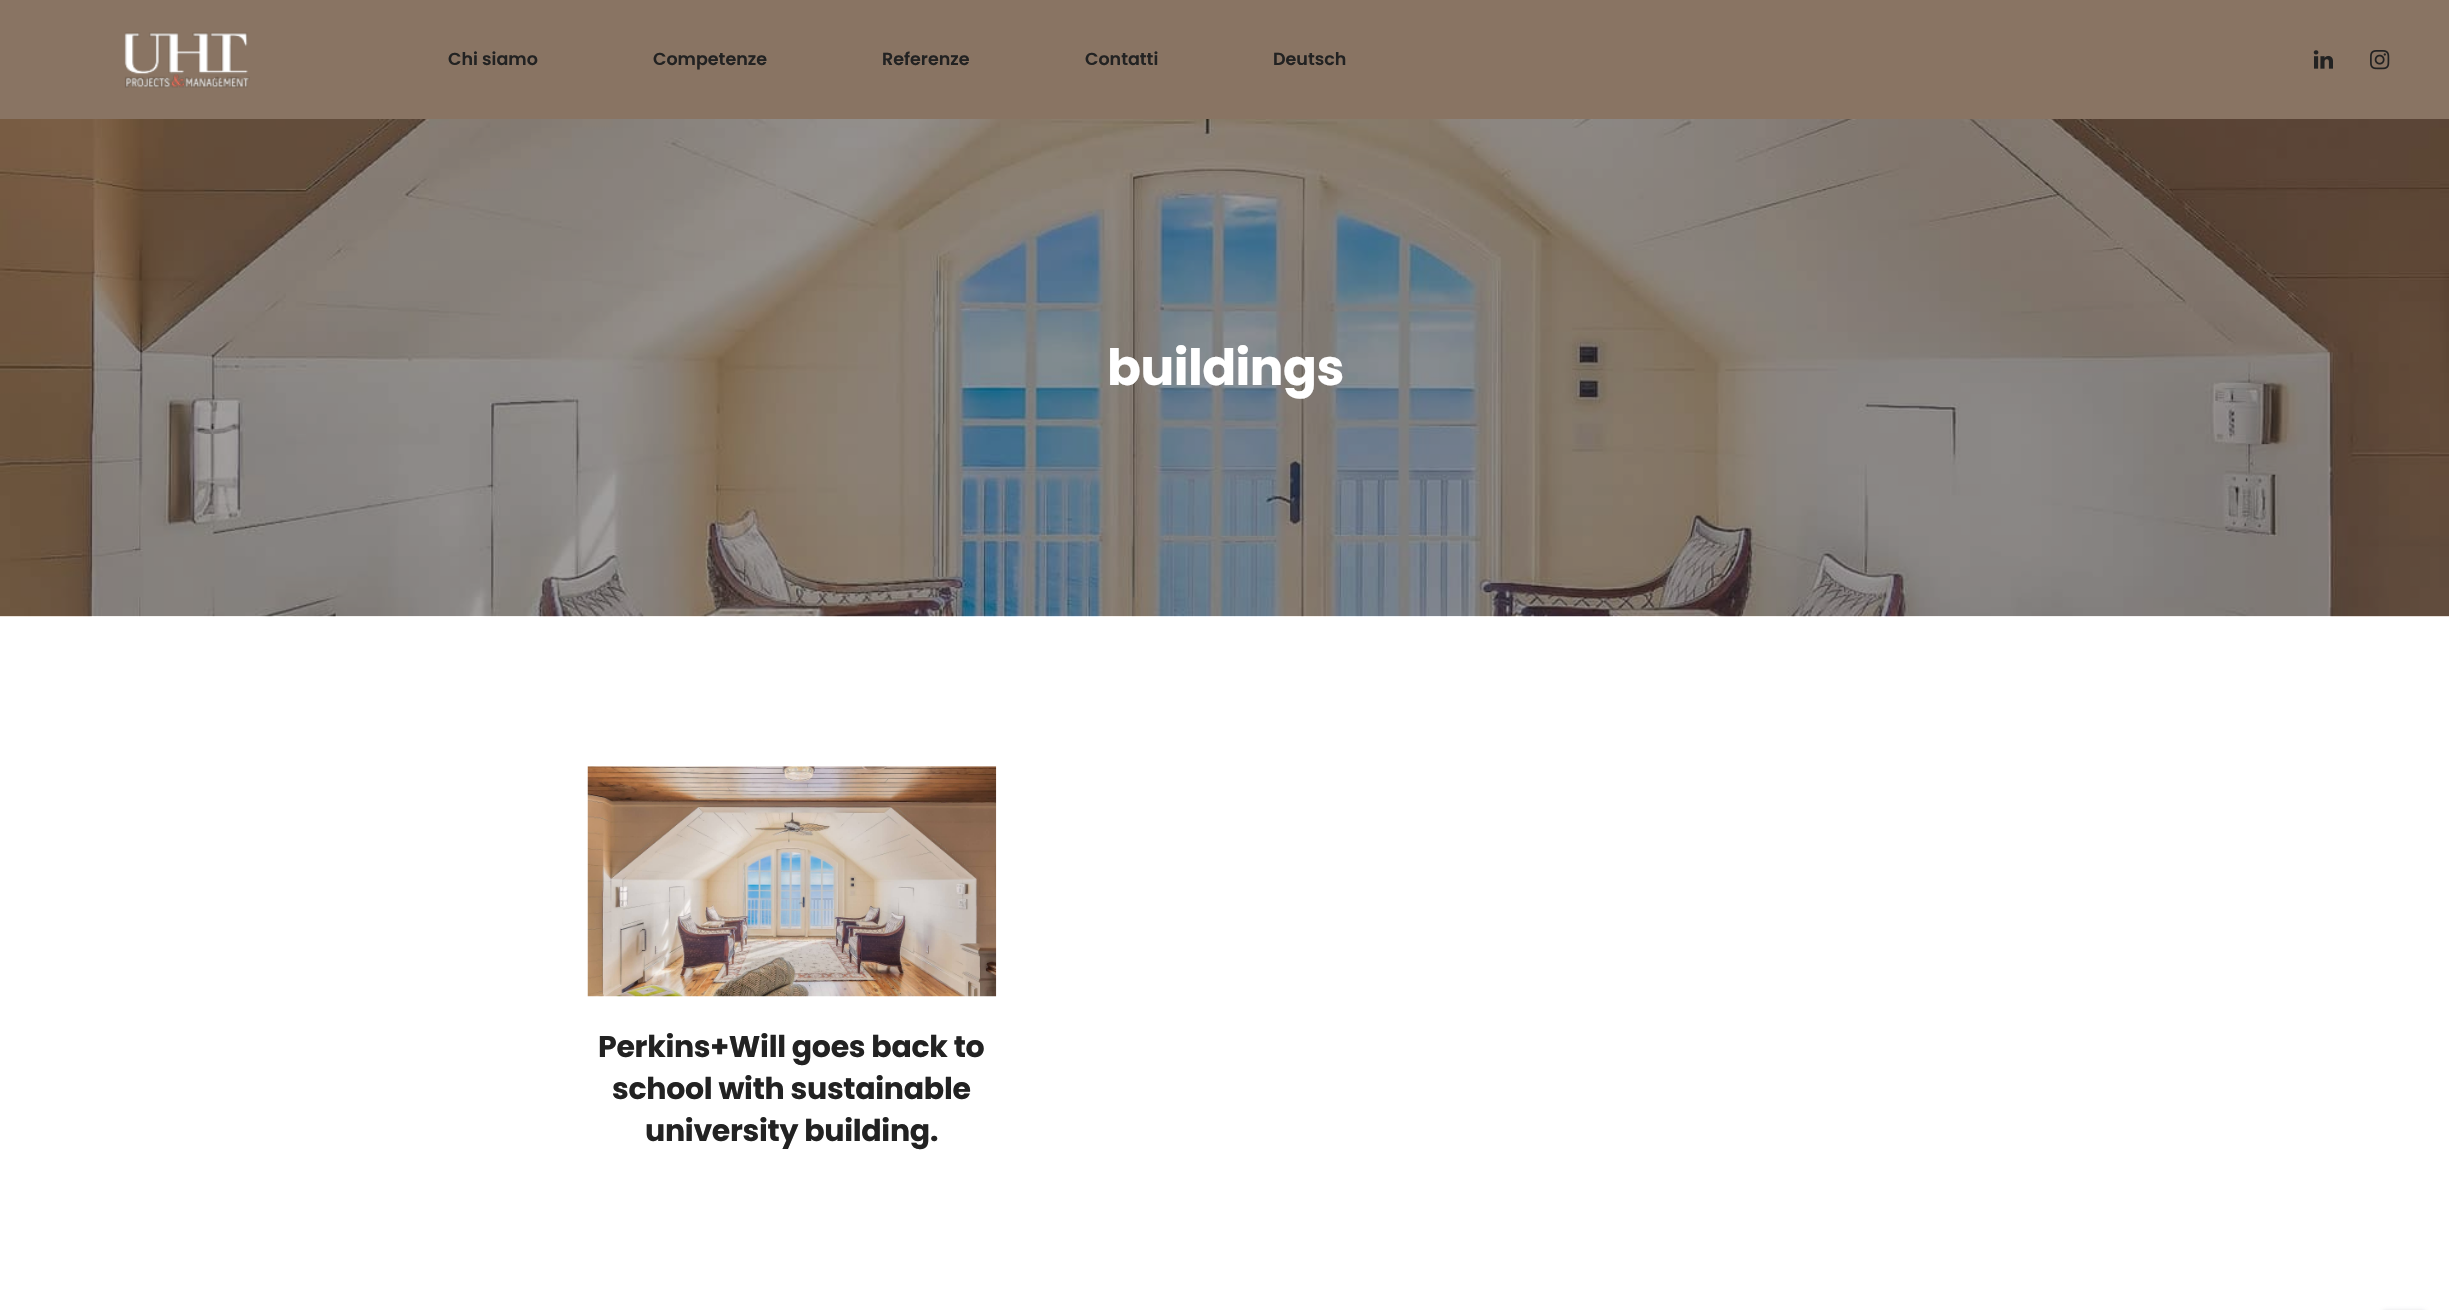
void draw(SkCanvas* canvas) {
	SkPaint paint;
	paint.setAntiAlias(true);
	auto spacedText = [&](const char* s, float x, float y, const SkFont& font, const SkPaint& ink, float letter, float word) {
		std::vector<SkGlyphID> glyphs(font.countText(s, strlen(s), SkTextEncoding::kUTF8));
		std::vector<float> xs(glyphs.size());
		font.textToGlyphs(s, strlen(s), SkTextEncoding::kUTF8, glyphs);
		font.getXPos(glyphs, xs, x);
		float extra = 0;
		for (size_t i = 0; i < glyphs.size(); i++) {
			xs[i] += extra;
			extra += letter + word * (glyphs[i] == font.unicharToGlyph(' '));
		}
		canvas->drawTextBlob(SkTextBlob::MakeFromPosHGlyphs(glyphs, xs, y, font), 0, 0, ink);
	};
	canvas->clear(0xffffffff);
	paint.setColor(0xff897463);
	canvas->drawRect(SkRect::MakeXYWH(0, 0, 2449, 119), paint);
	canvas->drawImageRect(SkImages::DeferredFromEncodedData(SkData::MakeFromFileName("img1.png")), SkRect::MakeXYWH(124, 32, 126, 56), SkSamplingOptions());
	SkFont f1(fontMgr->matchFamilyStyle("Poppins", SkFontStyle(600, SkFontStyle::kNormal_Width, SkFontStyle::kUpright_Slant)), 17.5);
	f1.setSubpixel(true);
	paint.setColor(0xff222222);
	canvas->drawString("Chi siamo", 448, 65, f1, paint);
	canvas->drawString("Competenze", 653, 65, f1, paint);
	canvas->drawString("Referenze", 882, 65, f1, paint);
	canvas->drawString("Contatti", 1085, 65, f1, paint);
	canvas->drawString("Deutsch", 1273, 65, f1, paint);
	canvas->drawImageRect(SkImages::DeferredFromEncodedData(SkData::MakeFromFileName("img2.png")), SkRect::MakeXYWH(2313, 50, 20, 19), SkSamplingOptions());
	canvas->drawImageRect(SkImages::DeferredFromEncodedData(SkData::MakeFromFileName("img3.png")), SkRect::MakeXYWH(2370, 50, 20, 20), SkSamplingOptions());
	canvas->drawImageRect(SkImages::DeferredFromEncodedData(SkData::MakeFromFileName("img4.png")), SkRect::MakeXYWH(0, 119, 2449, 498), SkSamplingOptions());
	SkFont f2(fontMgr->matchFamilyStyle("Poppins", SkFontStyle::Bold()), 50);
	f2.setSubpixel(true);
	paint.setColor(0xffffffff);
	spacedText("buildings", 1107, 385, f2, paint, -0.5, 0);
	canvas->drawImageRect(SkImages::DeferredFromEncodedData(SkData::MakeFromFileName("img5.png")), SkRect::MakeXYWH(587, 766, 410, 231), SkSamplingOptions());
	SkFont f3(fontMgr->matchFamilyStyle("Poppins", SkFontStyle::Bold()), 30);
	f3.setSubpixel(true);
	paint.setColor(0xff222222);
	spacedText("Perkins+Will goes back to", 598, 1057, f3, paint, -0.3, 0);
	spacedText("school with sustainable", 612, 1099, f3, paint, -0.3, 0);
	spacedText("university building.", 645, 1141, f3, paint, -0.3, 0);
	paint.setColor(0x669aa1ab);
	paint.setMaskFilter(SkMaskFilter::MakeBlur(kNormal_SkBlurStyle, 2.5));
	canvas->drawRect(SkRect::MakeXYWH(2383, 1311, 42, 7), paint);
	paint.setMaskFilter(nullptr);
}
